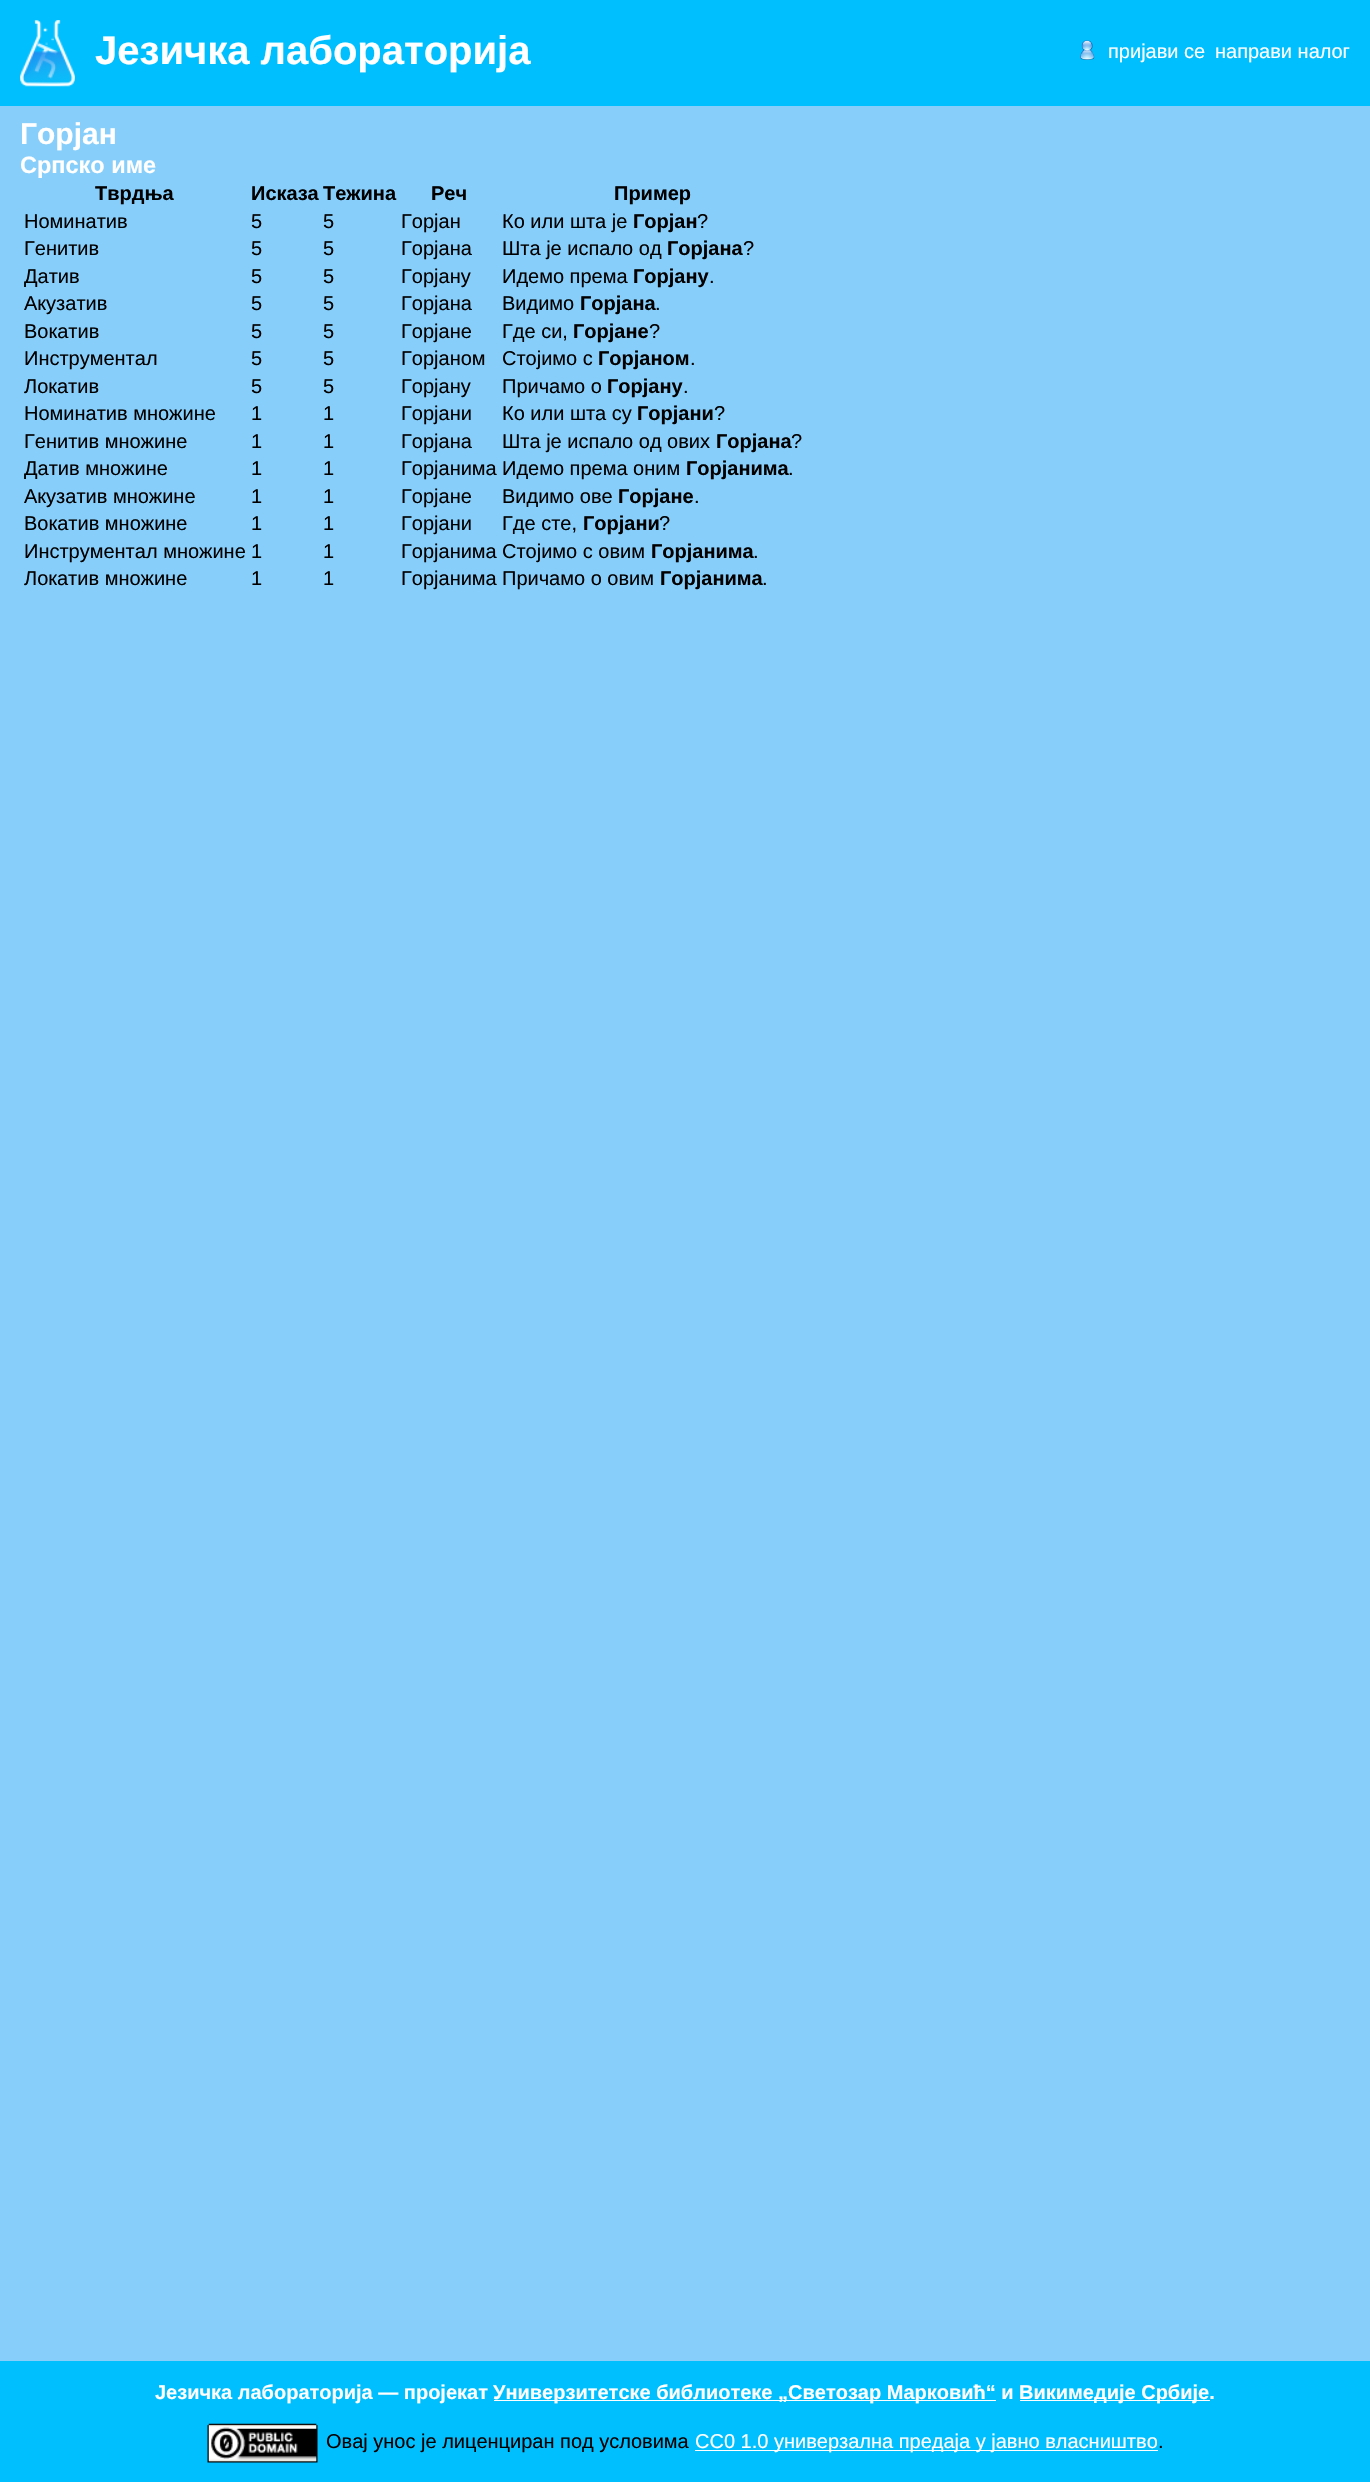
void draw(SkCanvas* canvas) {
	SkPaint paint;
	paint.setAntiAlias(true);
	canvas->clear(0xff87cefa);
	paint.setColor(0xff00bfff);
	canvas->drawRect(SkRect::MakeXYWH(0, 0, 1370, 106), paint);
	canvas->drawImageRect(SkImages::DeferredFromEncodedData(SkData::MakeFromFileName("img1.png")), SkRect::MakeXYWH(20, 20, 55, 67), SkSamplingOptions());
	SkFont f1(fontMgr->matchFamilyStyle("Liberation Sans", SkFontStyle::Bold()), 40);
	f1.setSubpixel(true);
	paint.setColor(0xffffffff);
	canvas->drawString("Језичка лабораторија", 95, 64, f1, paint);
	canvas->drawImageRect(SkImages::DeferredFromEncodedData(SkData::MakeFromFileName("img2.png")), SkRect::MakeXYWH(1080, 40, 15, 20), SkSamplingOptions());
	SkFont f2(fontMgr->matchFamilyStyle("Liberation Sans", SkFontStyle::Normal()), 20);
	f2.setSubpixel(true);
	canvas->drawString("пријави се", 1108, 58, f2, paint);
	canvas->drawString("направи налог", 1215, 58, f2, paint);
	SkFont f3(fontMgr->matchFamilyStyle("Liberation Sans", SkFontStyle::Bold()), 30);
	f3.setSubpixel(true);
	canvas->drawString("Горјан", 20, 144, f3, paint);
	SkFont f4(fontMgr->matchFamilyStyle("Liberation Sans", SkFontStyle::Bold()), 23.5);
	f4.setSubpixel(true);
	canvas->drawString("Српско име", 20, 173, f4, paint);
	SkFont f5(fontMgr->matchFamilyStyle("Liberation Sans", SkFontStyle::Bold()), 20);
	f5.setSubpixel(true);
	paint.setColor(0xff000000);
	canvas->drawString("Тврдња", 95, 200, f5, paint);
	canvas->drawString("Исказа", 251, 200, f5, paint);
	canvas->drawString("Тежина", 323, 200, f5, paint);
	canvas->drawString("Реч", 431, 200, f5, paint);
	canvas->drawString("Пример", 614, 200, f5, paint);
	canvas->drawString("Номинатив", 24, 228, f2, paint);
	canvas->drawString("5", 251, 228, f2, paint);
	canvas->drawString("5", 323, 228, f2, paint);
	canvas->drawString("Горјан", 401, 228, f2, paint);
	canvas->drawString("Ко или шта је", 502, 228, f2, paint);
	canvas->drawString("Горјан", 633, 228, f5, paint);
	canvas->drawString("?", 697, 228, f2, paint);
	canvas->drawString("Генитив", 24, 255, f2, paint);
	canvas->drawString("5", 251, 255, f2, paint);
	canvas->drawString("5", 323, 255, f2, paint);
	canvas->drawString("Горјана", 401, 255, f2, paint);
	canvas->drawString("Шта је испало од", 502, 255, f2, paint);
	canvas->drawString("Горјана", 667, 255, f5, paint);
	canvas->drawString("?", 743, 255, f2, paint);
	canvas->drawString("Датив", 24, 283, f2, paint);
	canvas->drawString("5", 251, 283, f2, paint);
	canvas->drawString("5", 323, 283, f2, paint);
	canvas->drawString("Горјану", 401, 283, f2, paint);
	canvas->drawString("Идемо према", 502, 283, f2, paint);
	canvas->drawString("Горјану", 633, 283, f5, paint);
	canvas->drawString(".", 709, 283, f2, paint);
	canvas->drawString("Акузатив", 24, 310, f2, paint);
	canvas->drawString("5", 251, 310, f2, paint);
	canvas->drawString("5", 323, 310, f2, paint);
	canvas->drawString("Горјана", 401, 310, f2, paint);
	canvas->drawString("Видимо", 502, 310, f2, paint);
	canvas->drawString("Горјана", 580, 310, f5, paint);
	canvas->drawString(".", 655, 310, f2, paint);
	canvas->drawString("Вокатив", 24, 338, f2, paint);
	canvas->drawString("5", 251, 338, f2, paint);
	canvas->drawString("5", 323, 338, f2, paint);
	canvas->drawString("Горјане", 401, 338, f2, paint);
	canvas->drawString("Где си,", 502, 338, f2, paint);
	canvas->drawString("Горјане", 573, 338, f5, paint);
	canvas->drawString("?", 649, 338, f2, paint);
	canvas->drawString("Инструментал", 24, 365, f2, paint);
	canvas->drawString("5", 251, 365, f2, paint);
	canvas->drawString("5", 323, 365, f2, paint);
	canvas->drawString("Горјаном", 401, 365, f2, paint);
	canvas->drawString("Стојимо с", 502, 365, f2, paint);
	canvas->drawString("Горјаном", 598, 365, f5, paint);
	canvas->drawString(".", 690, 365, f2, paint);
	canvas->drawString("Локатив", 24, 393, f2, paint);
	canvas->drawString("5", 251, 393, f2, paint);
	canvas->drawString("5", 323, 393, f2, paint);
	canvas->drawString("Горјану", 401, 393, f2, paint);
	canvas->drawString("Причамо о", 502, 393, f2, paint);
	canvas->drawString("Горјану", 607, 393, f5, paint);
	canvas->drawString(".", 683, 393, f2, paint);
	canvas->drawString("Номинатив множине", 24, 420, f2, paint);
	canvas->drawString("1", 251, 420, f2, paint);
	canvas->drawString("1", 323, 420, f2, paint);
	canvas->drawString("Горјани", 401, 420, f2, paint);
	canvas->drawString("Ко или шта су", 502, 420, f2, paint);
	canvas->drawString("Горјани", 637, 420, f5, paint);
	canvas->drawString("?", 714, 420, f2, paint);
	canvas->drawString("Генитив множине", 24, 448, f2, paint);
	canvas->drawString("1", 251, 448, f2, paint);
	canvas->drawString("1", 323, 448, f2, paint);
	canvas->drawString("Горјана", 401, 448, f2, paint);
	canvas->drawString("Шта је испало од ових", 502, 448, f2, paint);
	canvas->drawString("Горјана", 716, 448, f5, paint);
	canvas->drawString("?", 791, 448, f2, paint);
	canvas->drawString("Датив множине", 24, 475, f2, paint);
	canvas->drawString("1", 251, 475, f2, paint);
	canvas->drawString("1", 323, 475, f2, paint);
	canvas->drawString("Горјанима", 401, 475, f2, paint);
	canvas->drawString("Идемо према оним", 502, 475, f2, paint);
	canvas->drawString("Горјанима", 686, 475, f5, paint);
	canvas->drawString(".", 788, 475, f2, paint);
	canvas->drawString("Акузатив множине", 24, 503, f2, paint);
	canvas->drawString("1", 251, 503, f2, paint);
	canvas->drawString("1", 323, 503, f2, paint);
	canvas->drawString("Горјане", 401, 503, f2, paint);
	canvas->drawString("Видимо ове", 502, 503, f2, paint);
	canvas->drawString("Горјане", 618, 503, f5, paint);
	canvas->drawString(".", 694, 503, f2, paint);
	canvas->drawString("Вокатив множине", 24, 530, f2, paint);
	canvas->drawString("1", 251, 530, f2, paint);
	canvas->drawString("1", 323, 530, f2, paint);
	canvas->drawString("Горјани", 401, 530, f2, paint);
	canvas->drawString("Где сте,", 502, 530, f2, paint);
	canvas->drawString("Горјани", 583, 530, f5, paint);
	canvas->drawString("?", 659, 530, f2, paint);
	canvas->drawString("Инструментал множине", 24, 558, f2, paint);
	canvas->drawString("1", 251, 558, f2, paint);
	canvas->drawString("1", 323, 558, f2, paint);
	canvas->drawString("Горјанима", 401, 558, f2, paint);
	canvas->drawString("Стојимо с овим", 502, 558, f2, paint);
	canvas->drawString("Горјанима", 651, 558, f5, paint);
	canvas->drawString(".", 753, 558, f2, paint);
	canvas->drawString("Локатив множине", 24, 585, f2, paint);
	canvas->drawString("1", 251, 585, f2, paint);
	canvas->drawString("1", 323, 585, f2, paint);
	canvas->drawString("Горјанима", 401, 585, f2, paint);
	canvas->drawString("Причамо о овим", 502, 585, f2, paint);
	canvas->drawString("Горјанима", 660, 585, f5, paint);
	canvas->drawString(".", 762, 585, f2, paint);
	paint.setColor(0xff00bfff);
	canvas->drawRect(SkRect::MakeXYWH(0, 2361, 1370, 121), paint);
	paint.setColor(0xffffffff);
	canvas->drawString("Језичка лабораторија — пројекат", 155, 2399, f5, paint);
	canvas->drawRect(SkRect::MakeXYWH(494, 2400, 502, 1), paint);
	canvas->drawString("Универзитетске библиотеке „Светозар Марковић“ и", 493, 2399, f5, paint);
	canvas->drawRect(SkRect::MakeXYWH(1020, 2400, 190, 1), paint);
	canvas->drawString("Викимедије Србије.", 1019, 2399, f5, paint);
	canvas->drawImageRect(SkImages::DeferredFromEncodedData(SkData::MakeFromFileName("img3.png")), SkRect::MakeXYWH(207, 2423, 111, 40), SkSamplingOptions());
	paint.setColor(0xff000000);
	canvas->drawString("Овај унос је лиценциран под условима", 326, 2448, f2, paint);
	paint.setColor(0xffffffff);
	canvas->drawRect(SkRect::MakeXYWH(695, 2450, 463, 1), paint);
	canvas->drawString("CC0 1.0 универзалнa предаја у јавно власништво", 695, 2448, f2, paint);
	paint.setColor(0xff000000);
	canvas->drawString(".", 1158, 2448, f2, paint);
}
